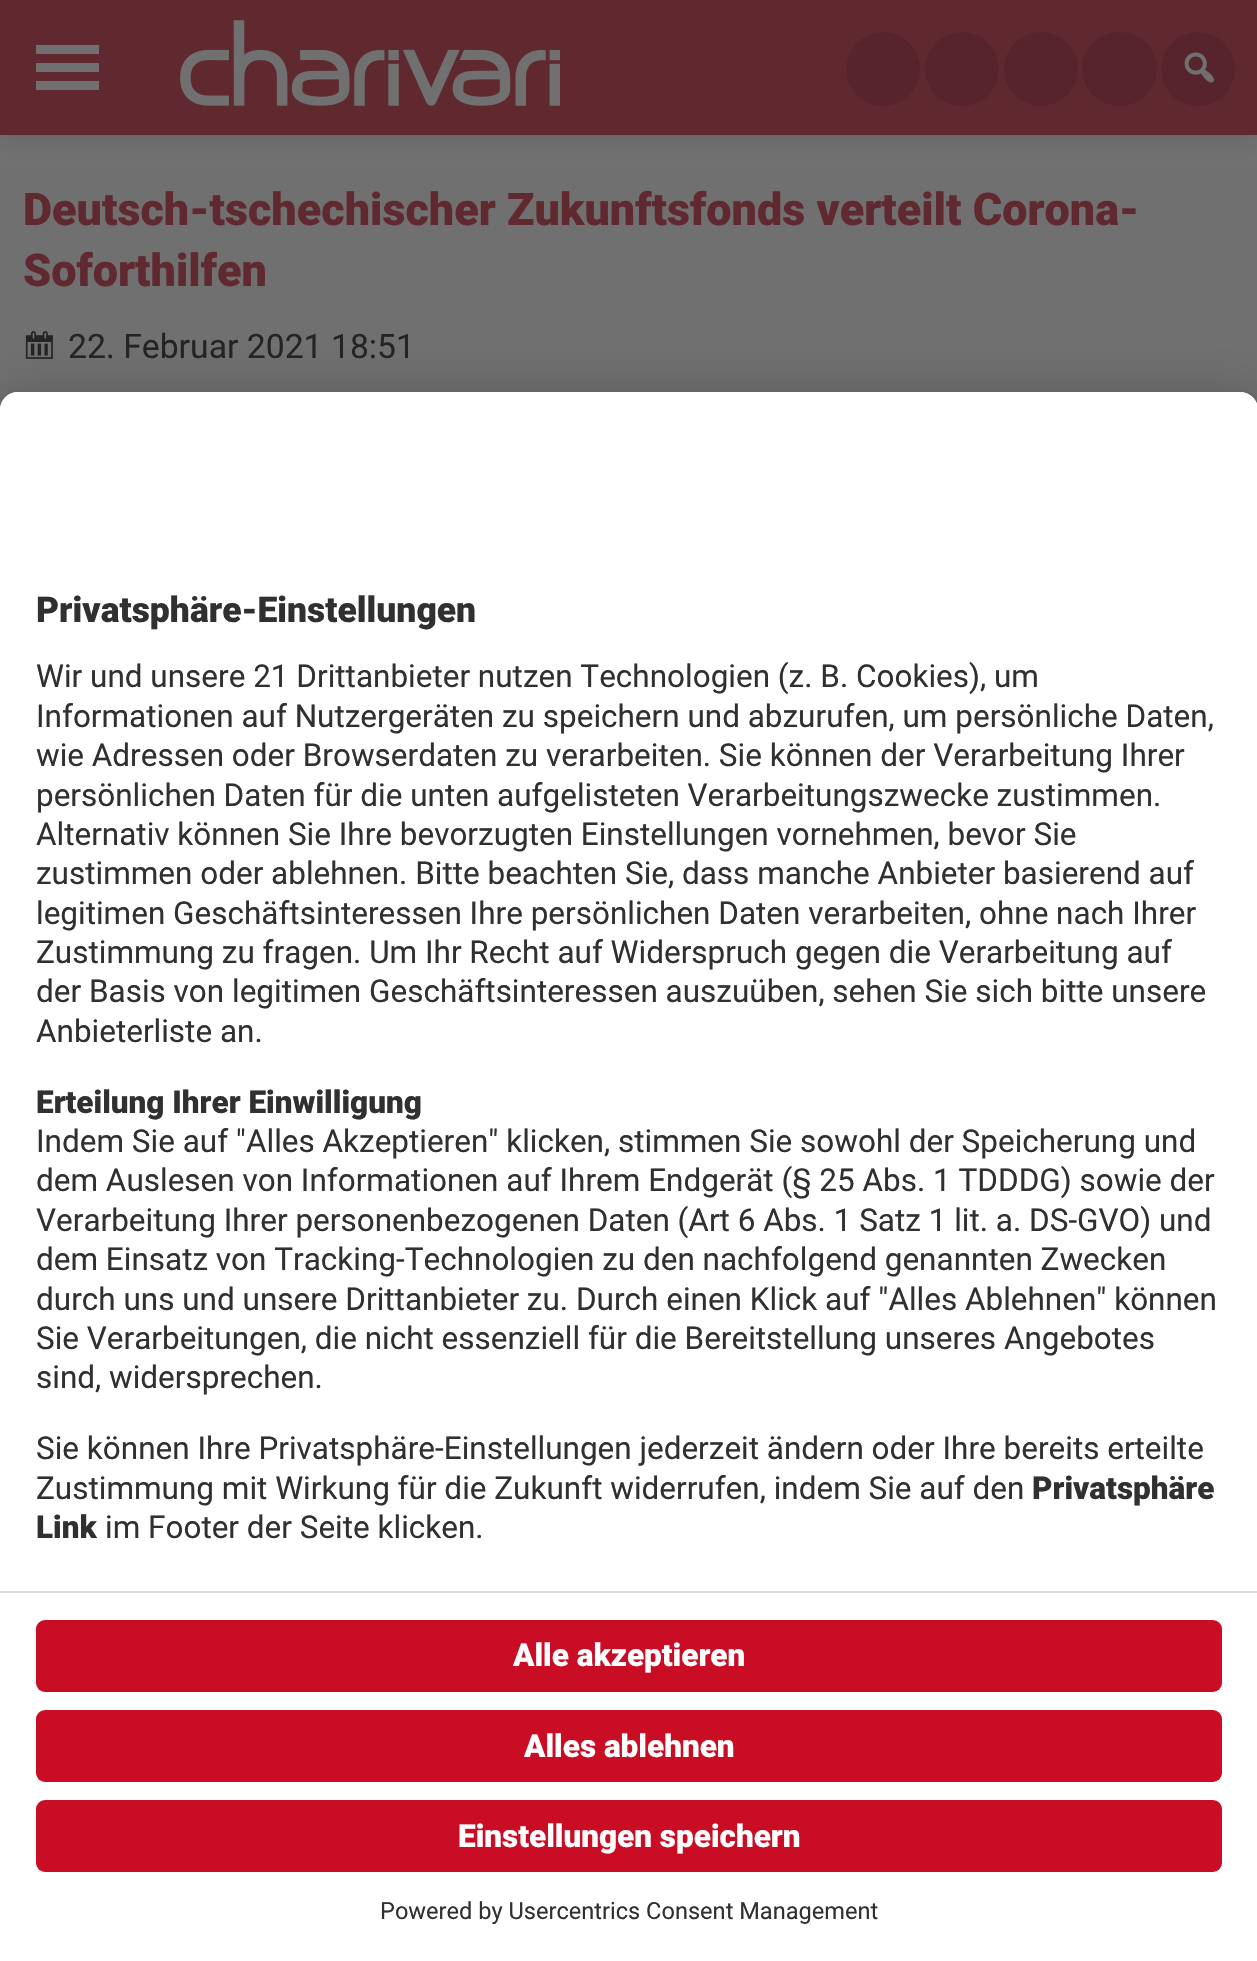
void draw(SkCanvas* canvas) {
	SkPaint paint;
	paint.setAntiAlias(true);
	auto svgPath = [&](const char* data, bool evenOdd = false) {
		SkPath result = *SkParsePath::FromSVGString(data);
		if (evenOdd) result.setFillType(SkPathFillType::kEvenOdd);
		return result;
	};
	canvas->clear(0xff707070);
	paint.setColor(0x33242424);
	paint.setMaskFilter(SkMaskFilter::MakeBlur(kNormal_SkBlurStyle, 11));
	canvas->drawRect(SkRect::MakeXYWH(0, 0, 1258, 135), paint);
	paint.setMaskFilter(nullptr);
	paint.setColor(0xff60282f);
	canvas->drawRect(SkRect::MakeXYWH(0, 0, 1257, 135), paint);
	paint.setColor(0xff707070);
	canvas->drawPath(svgPath("M36 90H99V81H36ZM36 45V54H99V45ZM36 72H99V63H36Z"), paint);
	canvas->drawImageRect(SkImages::DeferredFromEncodedData(SkData::MakeFromFileName("img1.png")), SkRect::MakeXYWH(180, 20, 380, 86), SkSamplingOptions());
	paint.setColor(0xff56242a);
	canvas->drawCircle(883, 69, 37, paint);
	canvas->drawCircle(962, 69, 37, paint);
	canvas->drawCircle(1041, 69, 37, paint);
	canvas->drawRoundRect(SkRect::MakeXYWH(1082, 32, 75, 74), 37, 37, paint);
	canvas->drawCircle(1198, 69, 37, paint);
	canvas->drawImageRect(SkImages::DeferredFromEncodedData(SkData::MakeFromFileName("img2.png")), SkRect::MakeXYWH(1184, 52, 30, 31), SkSamplingOptions());
	SkFont f1(fontMgr->matchFamilyStyle("Roboto", SkFontStyle(900, SkFontStyle::kNormal_Width, SkFontStyle::kUpright_Slant)), 45);
	f1.setSubpixel(true);
	paint.setColor(0xff60282f);
	canvas->drawString("Deutsch-tschechischer Zukunftsfonds verteilt Corona-", 23, 225, f1, paint);
	canvas->drawString("Soforthilfen", 23, 286, f1, paint);
	canvas->drawImageRect(SkImages::DeferredFromEncodedData(SkData::MakeFromFileName("img3.png")), SkRect::MakeXYWH(25, 331, 28, 28), SkSamplingOptions());
	SkFont f2(fontMgr->matchFamilyStyle("Roboto", SkFontStyle::Normal()), 33.75);
	f2.setSubpixel(true);
	paint.setColor(0xff242424);
	canvas->drawString("22. Februar 2021 18:51", 68, 358, f2, paint);
	paint.setColor(0x4d000000);
	paint.setMaskFilter(SkMaskFilter::MakeBlur(kNormal_SkBlurStyle, 31.5));
	canvas->drawRoundRect(SkRect::MakeXYWH(0, 437, 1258, 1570), 18, 18, paint);
	paint.setMaskFilter(nullptr);
	paint.setColor(0x38000000);
	paint.setMaskFilter(SkMaskFilter::MakeBlur(kNormal_SkBlurStyle, 29));
	canvas->drawRoundRect(SkRect::MakeXYWH(0, 403, 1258, 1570), 18, 18, paint);
	paint.setMaskFilter(nullptr);
	paint.setColor(0xffffffff);
	canvas->drawPath(svgPath("M18 392H1240C1250 392 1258 400 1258 410V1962H0V410C0 400 8 392 18 392Z"), paint);
	canvas->drawPath(svgPath("M18 392H1240C1250 392 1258 400 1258 410V1591H0V410C0 400 8 392 18 392Z"), paint);
	SkFont f3(fontMgr->matchFamilyStyle("Roboto", SkFontStyle(900, SkFontStyle::kNormal_Width, SkFontStyle::kUpright_Slant)), 35.5);
	f3.setSubpixel(true);
	paint.setColor(0xff303030);
	canvas->drawString("Privatsphäre-Einstellungen", 36, 622, f3, paint);
	SkFont f4(fontMgr->matchFamilyStyle("Roboto", SkFontStyle::Normal()), 31.5);
	f4.setSubpixel(true);
	canvas->drawString("Wir und unsere 21 Drittanbieter nutzen Technologien (z. B. Cookies), um", 36, 687, f4, paint);
	canvas->drawString("Informationen auf Nutzergeräten zu speichern und abzurufen, um persönliche Daten,", 36, 727, f4, paint);
	canvas->drawString("wie Adressen oder Browserdaten zu verarbeiten. Sie können der Verarbeitung Ihrer", 36, 766, f4, paint);
	canvas->drawString("persönlichen Daten für die unten aufgelisteten Verarbeitungszwecke zustimmen.", 36, 806, f4, paint);
	canvas->drawString("Alternativ können Sie Ihre bevorzugten Einstellungen vornehmen, bevor Sie", 36, 845, f4, paint);
	canvas->drawString("zustimmen oder ablehnen. Bitte beachten Sie, dass manche Anbieter basierend auf", 36, 884, f4, paint);
	canvas->drawString("legitimen Geschäftsinteressen Ihre persönlichen Daten verarbeiten, ohne nach Ihrer", 36, 924, f4, paint);
	canvas->drawString("Zustimmung zu fragen. Um Ihr Recht auf Widerspruch gegen die Verarbeitung auf", 36, 963, f4, paint);
	canvas->drawString("der Basis von legitimen Geschäftsinteressen auszuüben, sehen Sie sich bitte unsere", 36, 1002, f4, paint);
	canvas->drawString("Anbieterliste an.", 36, 1042, f4, paint);
	SkFont f5(fontMgr->matchFamilyStyle("Roboto", SkFontStyle(900, SkFontStyle::kNormal_Width, SkFontStyle::kUpright_Slant)), 31.5);
	f5.setSubpixel(true);
	canvas->drawString("Erteilung Ihrer Einwilligung", 36, 1113, f5, paint);
	canvas->drawString("Indem Sie auf \"Alles Akzeptieren\" klicken, stimmen Sie sowohl der Speicherung und", 36, 1152, f4, paint);
	canvas->drawString("dem Auslesen von Informationen auf Ihrem Endgerät (§ 25 Abs. 1 TDDDG) sowie der", 36, 1191, f4, paint);
	canvas->drawString("Verarbeitung Ihrer personenbezogenen Daten (Art 6 Abs. 1 Satz 1 lit. a. DS-GVO) und", 36, 1231, f4, paint);
	canvas->drawString("dem Einsatz von Tracking-Technologien zu den nachfolgend genannten Zwecken", 36, 1270, f4, paint);
	canvas->drawString("durch uns und unsere Drittanbieter zu. Durch einen Klick auf \"Alles Ablehnen\" können", 36, 1310, f4, paint);
	canvas->drawString("Sie Verarbeitungen, die nicht essenziell für die Bereitstellung unseres Angebotes", 36, 1349, f4, paint);
	canvas->drawString("sind, widersprechen.", 36, 1388, f4, paint);
	canvas->drawString("Sie können Ihre Privatsphäre-Einstellungen jederzeit ändern oder Ihre bereits erteilte", 36, 1459, f4, paint);
	canvas->drawString("Zustimmung mit Wirkung für die Zukunft widerrufen, indem Sie auf den", 36, 1499, f4, paint);
	canvas->drawString("Privatsphäre", 1032, 1499, f5, paint);
	canvas->drawString("Link", 36, 1538, f5, paint);
	canvas->drawString("im Footer der Seite klicken.", 105, 1538, f4, paint);
	paint.setColor(0xffdddddd);
	canvas->drawRect(SkRect::MakeXYWH(0, 1591, 1257, 2), paint);
	paint.setColor(0xffc80d24);
	canvas->drawRoundRect(SkRect::MakeXYWH(36, 1620, 1186, 72), 9, 9, paint);
	paint.setColor(0xffffffff);
	canvas->drawString("Alle akzeptieren", 513, 1666, f5, paint);
	paint.setColor(0xffc80d24);
	canvas->drawRoundRect(SkRect::MakeXYWH(36, 1710, 1186, 72), 9, 9, paint);
	paint.setColor(0xffffffff);
	canvas->drawString("Alles ablehnen", 524, 1757, f5, paint);
	paint.setColor(0xffc80d24);
	canvas->drawRoundRect(SkRect::MakeXYWH(36, 1800, 1186, 72), 9, 9, paint);
	paint.setColor(0xffffffff);
	canvas->drawString("Einstellungen speichern", 458, 1847, f5, paint);
	SkFont f6(fontMgr->matchFamilyStyle("Roboto", SkFontStyle::Normal()), 23.6);
	f6.setSubpixel(true);
	paint.setColor(0xff303030);
	canvas->drawString("Powered by Usercentrics Consent Management", 380, 1919, f6, paint);
}
